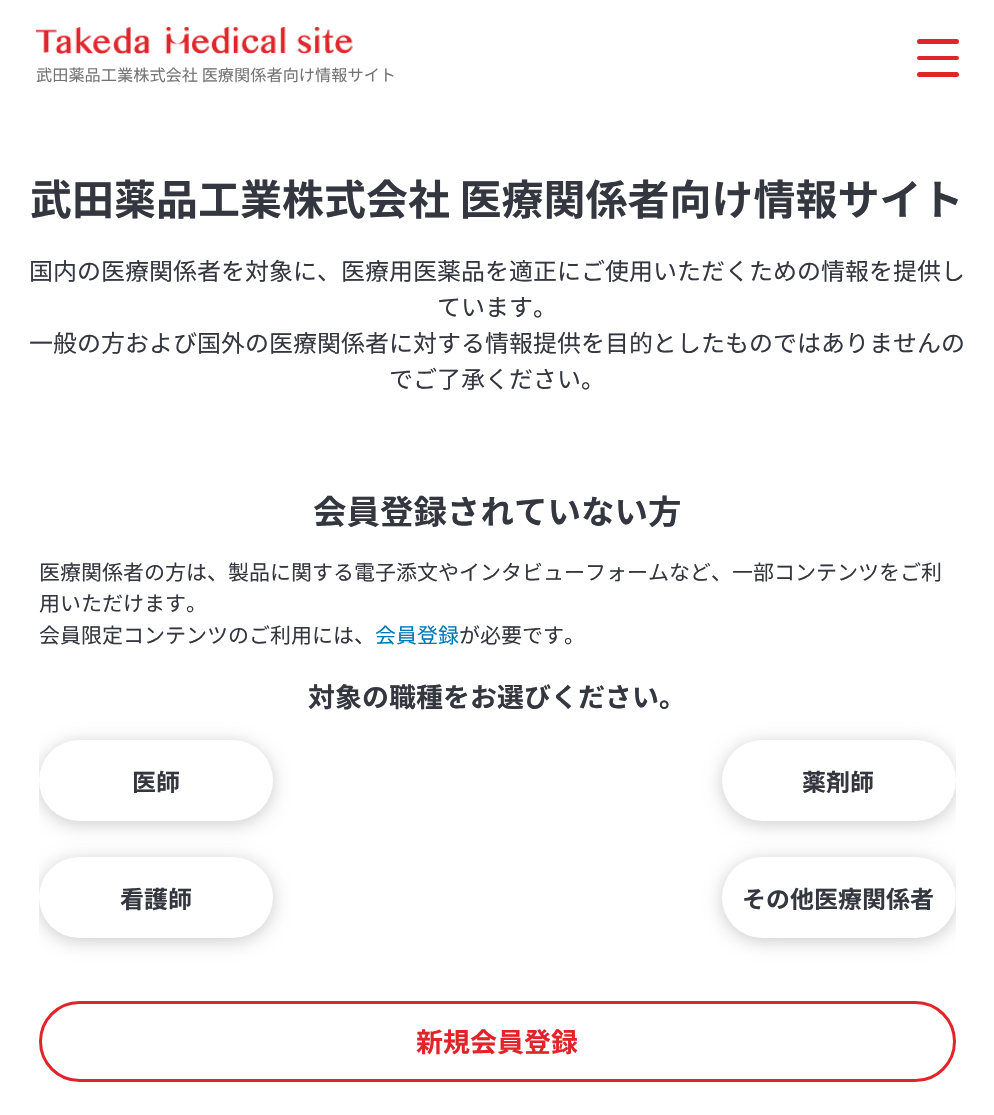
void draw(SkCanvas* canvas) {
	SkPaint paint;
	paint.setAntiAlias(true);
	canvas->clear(0xffffffff);
	canvas->drawImageRect(SkImages::DeferredFromEncodedData(SkData::MakeFromFileName("img1.png")), SkRect::MakeXYWH(36, 27, 317, 27), SkSamplingOptions());
	SkFont f1(fontMgr->matchFamilyStyle("Noto Sans JP", SkFontStyle::Normal()), 16.2);
	f1.setSubpixel(true);
	paint.setColor(0xff747474);
	canvas->drawString("武田薬品工業株式会社 医療関係者向け情報サイト", 36, 81, f1, paint);
	paint.setColor(0xffe1242a);
	canvas->drawRoundRect(SkRect::MakeXYWH(917, 39, 42, 5), 2.5, 2.5, paint);
	canvas->drawRoundRect(SkRect::MakeXYWH(917, 56, 42, 4), 2, 2, paint);
	canvas->drawRoundRect(SkRect::MakeXYWH(917, 72, 42, 5), 2.5, 2.5, paint);
	SkFont f2(fontMgr->matchFamilyStyle("Noto Sans JP", SkFontStyle::Bold()), 42);
	f2.setSubpixel(true);
	paint.setColor(0xff34373f);
	canvas->drawString("武田薬品工業株式会社 医療関係者向け情報サイト", 30, 215, f2, paint);
	SkFont f3(fontMgr->matchFamilyStyle("Noto Sans JP", SkFontStyle::Normal()), 24);
	f3.setSubpixel(true);
	canvas->drawString("国内の医療関係者を対象に、医療用医薬品を適正にご使用いただくための情報を提供し", 29, 280, f3, paint);
	canvas->drawString("ています。", 437, 316, f3, paint);
	canvas->drawString("一般の方および国外の医療関係者に対する情報提供を目的としたものではありませんの", 29, 352, f3, paint);
	canvas->drawString("でご了承ください。", 389, 388, f3, paint);
	SkFont f4(fontMgr->matchFamilyStyle("Noto Sans JP", SkFontStyle::Bold()), 33.5);
	f4.setSubpixel(true);
	canvas->drawString("会員登録されていない方", 313, 524, f4, paint);
	SkFont f5(fontMgr->matchFamilyStyle("Noto Sans JP", SkFontStyle::Normal()), 21);
	f5.setSubpixel(true);
	canvas->drawString("医療関係者の方は、製品に関する電子添文やインタビューフォームなど、一部コンテンツをご利", 39, 580, f5, paint);
	canvas->drawString("用いただけます。", 39, 611, f5, paint);
	canvas->drawString("会員限定コンテンツのご利用には、", 39, 643, f5, paint);
	paint.setColor(0xff0078b5);
	canvas->drawString("会員登録", 375, 643, f5, paint);
	paint.setColor(0xff34373f);
	canvas->drawString("が必要です。", 459, 643, f5, paint);
	SkFont f6(fontMgr->matchFamilyStyle("Noto Sans JP", SkFontStyle::Bold()), 27);
	f6.setSubpixel(true);
	canvas->drawString("対象の職種をお選びください。", 308, 707, f6, paint);
	canvas->save();
	canvas->clipRect(SkRect::MakeXYWH(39, 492, 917, 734));
	paint.setColor(0x33000000);
	paint.setMaskFilter(SkMaskFilter::MakeBlur(kNormal_SkBlurStyle, 9));
	canvas->drawRoundRect(SkRect::MakeXYWH(39, 743, 234, 81), 40.5, 40.5, paint);
	paint.setMaskFilter(nullptr);
	canvas->restore();
	paint.setColor(0xffffffff);
	canvas->drawRoundRect(SkRect::MakeXYWH(39, 740, 234, 81), 40.5, 40.5, paint);
	SkFont f7(fontMgr->matchFamilyStyle("Noto Sans JP", SkFontStyle::Bold()), 24);
	f7.setSubpixel(true);
	paint.setColor(0xff34373f);
	canvas->drawString("医師", 132, 791, f7, paint);
	canvas->save();
	canvas->clipRect(SkRect::MakeXYWH(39, 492, 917, 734));
	paint.setColor(0x33000000);
	paint.setMaskFilter(SkMaskFilter::MakeBlur(kNormal_SkBlurStyle, 9));
	canvas->drawRoundRect(SkRect::MakeXYWH(722, 743, 234, 81), 40.5, 40.5, paint);
	paint.setMaskFilter(nullptr);
	canvas->restore();
	paint.setColor(0xffffffff);
	canvas->drawRoundRect(SkRect::MakeXYWH(722, 740, 234, 81), 40.5, 40.5, paint);
	paint.setColor(0xff34373f);
	canvas->drawString("薬剤師", 802, 791, f7, paint);
	canvas->save();
	canvas->clipRect(SkRect::MakeXYWH(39, 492, 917, 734));
	paint.setColor(0x33000000);
	paint.setMaskFilter(SkMaskFilter::MakeBlur(kNormal_SkBlurStyle, 9));
	canvas->drawRoundRect(SkRect::MakeXYWH(39, 860, 234, 81), 40.5, 40.5, paint);
	paint.setMaskFilter(nullptr);
	canvas->restore();
	paint.setColor(0xffffffff);
	canvas->drawRoundRect(SkRect::MakeXYWH(39, 857, 234, 81), 40.5, 40.5, paint);
	paint.setColor(0xff34373f);
	canvas->drawString("看護師", 120, 908, f7, paint);
	canvas->save();
	canvas->clipRect(SkRect::MakeXYWH(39, 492, 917, 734));
	paint.setColor(0x33000000);
	paint.setMaskFilter(SkMaskFilter::MakeBlur(kNormal_SkBlurStyle, 9));
	canvas->drawRoundRect(SkRect::MakeXYWH(722, 860, 234, 81), 40.5, 40.5, paint);
	paint.setMaskFilter(nullptr);
	canvas->restore();
	paint.setColor(0xffffffff);
	canvas->drawRoundRect(SkRect::MakeXYWH(722, 857, 234, 81), 40.5, 40.5, paint);
	paint.setColor(0xff34373f);
	canvas->drawString("その他医療関係者", 742, 908, f7, paint);
	paint.setStroke(true);
	paint.setStrokeWidth(3);
	paint.setColor(0xffe1242a);
	canvas->drawRoundRect(SkRect::MakeXYWH(40.5, 1002.5, 914, 78), 39, 39, paint);
	paint.setStroke(false);
	canvas->drawString("新規会員登録", 416, 1052, f6, paint);
}
